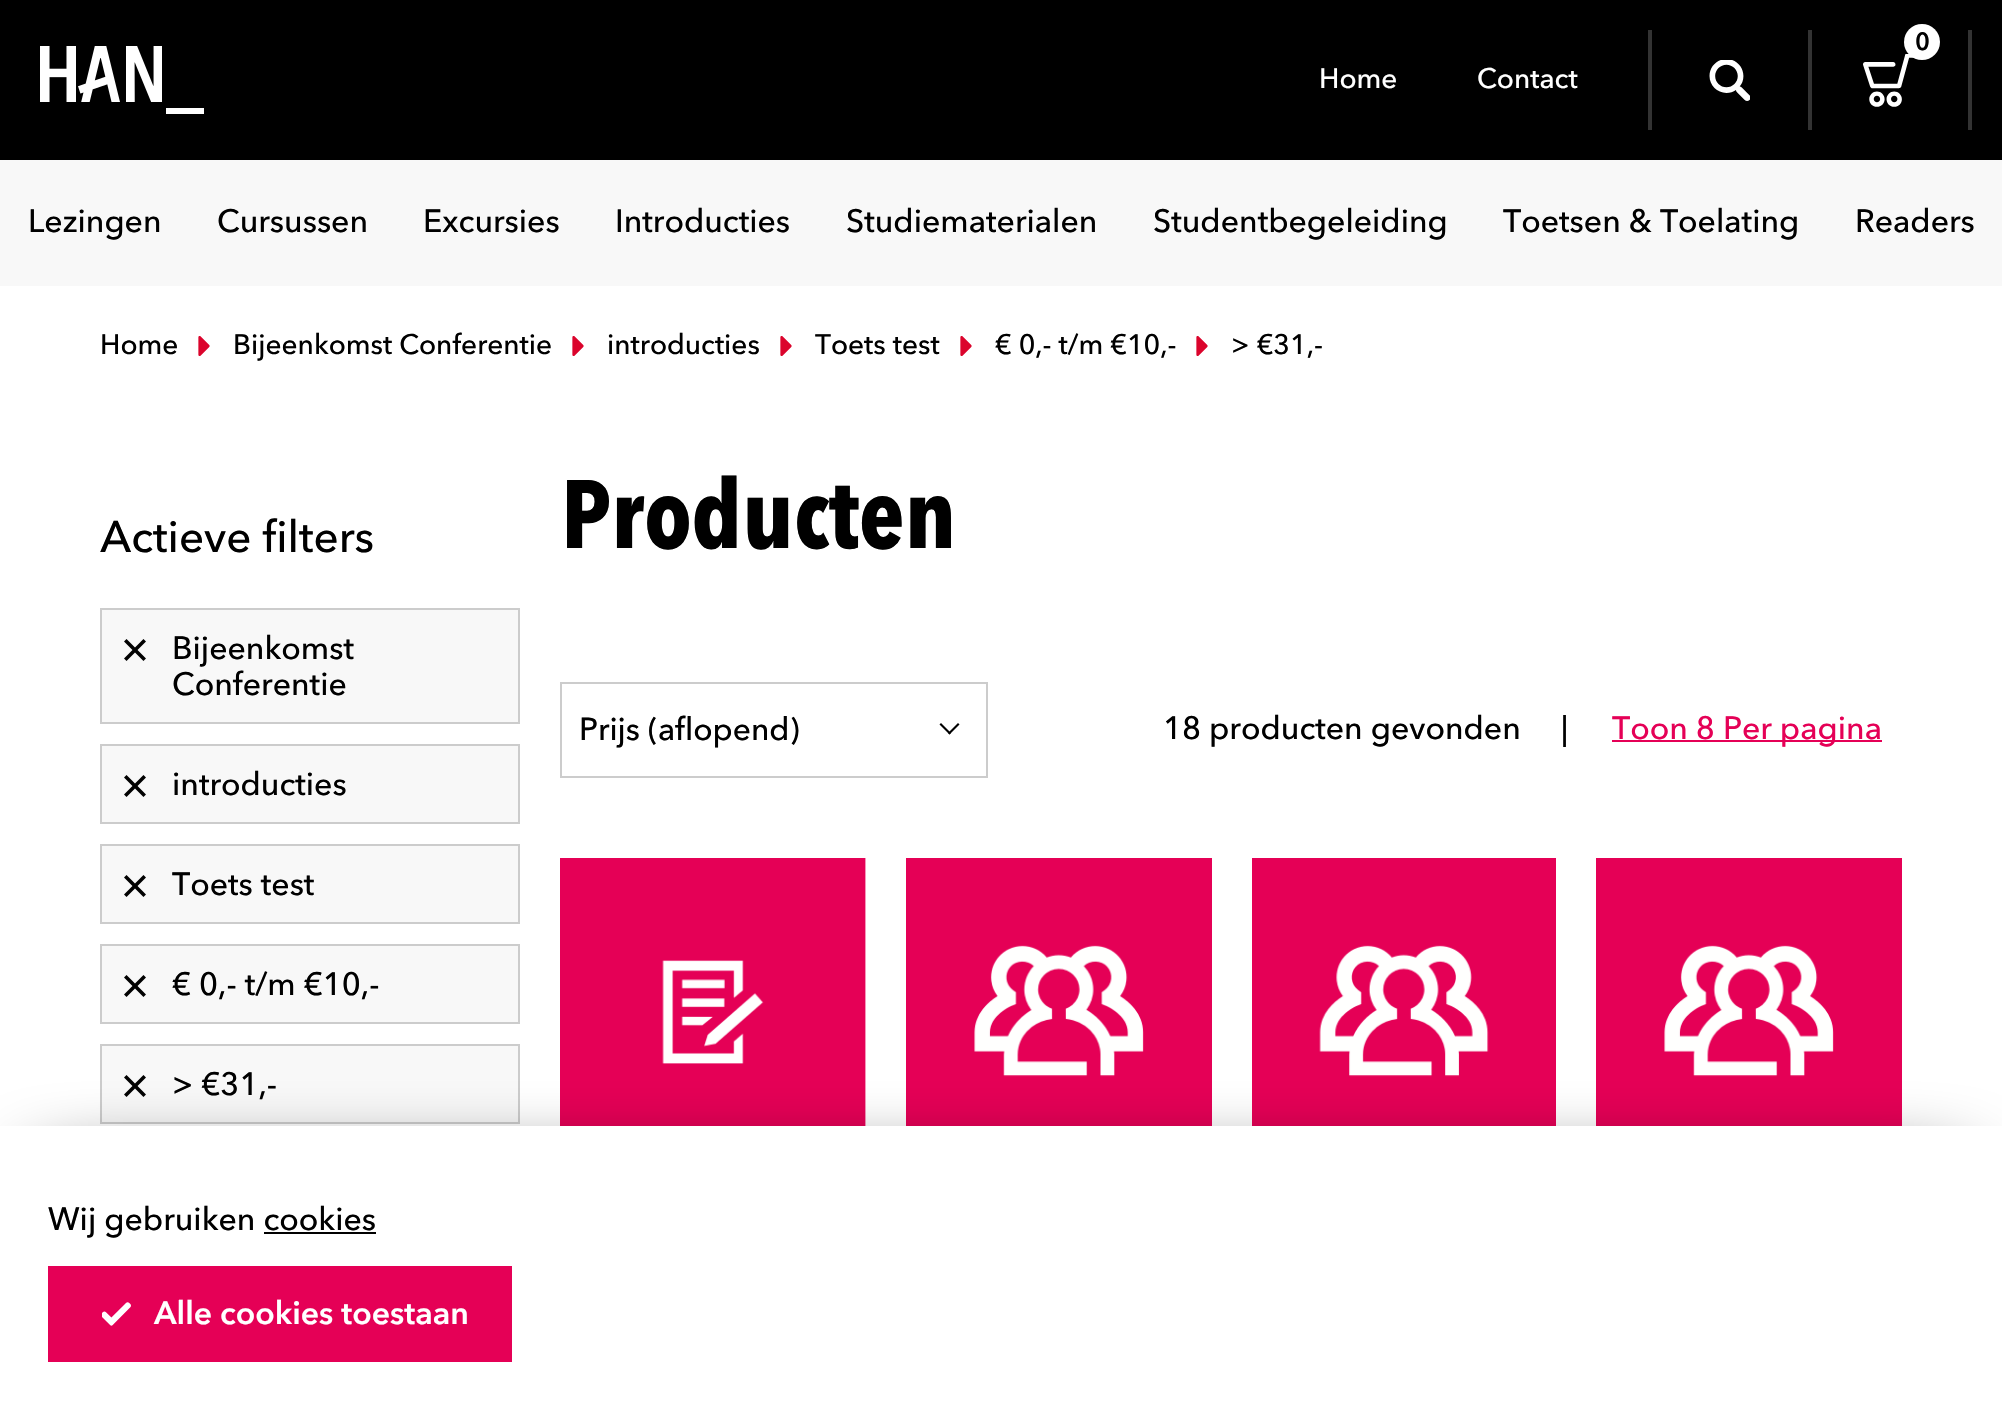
void draw(SkCanvas* canvas) {
	SkPaint paint;
	paint.setAntiAlias(true);
	auto svgPath = [&](const char* data, bool evenOdd = false) {
		SkPath result = *SkParsePath::FromSVGString(data);
		if (evenOdd) result.setFillType(SkPathFillType::kEvenOdd);
		return result;
	};
	canvas->clear(0xffffffff);
	paint.setColor(0xff000000);
	canvas->drawRect(SkRect::MakeXYWH(0, 0, 2002, 160), paint);
	canvas->drawImageRect(SkImages::DeferredFromEncodedData(SkData::MakeFromFileName("img1.png")), SkRect::MakeXYWH(40, 46, 164, 68), SkSamplingOptions());
	paint.setColor(0xff333333);
	canvas->drawRect(SkRect::MakeXYWH(1648, 30, 4, 100), paint);
	canvas->drawRect(SkRect::MakeXYWH(1808, 30, 4, 100), paint);
	canvas->drawImageRect(SkImages::DeferredFromEncodedData(SkData::MakeFromFileName("img2.png")), SkRect::MakeXYWH(1709, 60, 41, 41), SkSamplingOptions());
	canvas->drawRect(SkRect::MakeXYWH(1968, 30, 4, 100), paint);
	canvas->drawImageRect(SkImages::DeferredFromEncodedData(SkData::MakeFromFileName("img3.png")), SkRect::MakeXYWH(1863, 54, 51, 53), SkSamplingOptions());
	paint.setColor(0xffffffff);
	canvas->drawCircle(1922, 42, 18, paint);
	SkFont f1(fontMgr->matchFamilyStyle("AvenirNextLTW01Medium", SkFontStyle::Bold()), 24);
	f1.setSubpixel(true);
	paint.setColor(0xff000000);
	canvas->drawString("0", 1915, 50, f1, paint);
	SkFont f2(fontMgr->matchFamilyStyle("AvenirNextLTW01Medium", SkFontStyle(500, SkFontStyle::kNormal_Width, SkFontStyle::kUpright_Slant)), 28);
	f2.setSubpixel(true);
	paint.setColor(0xffffffff);
	canvas->drawString("Home", 1319, 88, f2, paint);
	canvas->drawString("Contact", 1477, 88, f2, paint);
	paint.setColor(0xfff8f8f8);
	canvas->drawRect(SkRect::MakeXYWH(0, 160, 2002, 126), paint);
	SkFont f3(fontMgr->matchFamilyStyle("AvenirNextLTW01Medium", SkFontStyle(500, SkFontStyle::kNormal_Width, SkFontStyle::kUpright_Slant)), 32);
	f3.setSubpixel(true);
	paint.setColor(0xff000000);
	canvas->drawString("Lezingen", 28, 232, f3, paint);
	canvas->drawString("Cursussen", 217, 232, f3, paint);
	canvas->drawString("Excursies", 423, 232, f3, paint);
	canvas->drawString("Introducties", 615, 232, f3, paint);
	canvas->drawString("Studiematerialen", 846, 232, f3, paint);
	canvas->drawString("Studentbegeleiding", 1153, 232, f3, paint);
	canvas->drawString("Toetsen & Toelating", 1503, 232, f3, paint);
	canvas->drawString("Readers", 1855, 232, f3, paint);
	canvas->drawString("Home", 100, 354, f2, paint);
	canvas->drawImageRect(SkImages::DeferredFromEncodedData(SkData::MakeFromFileName("img4.png")), SkRect::MakeXYWH(198, 336, 12, 20), SkSamplingOptions());
	canvas->drawString("Bijeenkomst Conferentie", 233, 354, f2, paint);
	canvas->drawImageRect(SkImages::DeferredFromEncodedData(SkData::MakeFromFileName("img4.png")), SkRect::MakeXYWH(572, 336, 12, 20), SkSamplingOptions());
	canvas->drawString("introducties", 607, 354, f2, paint);
	canvas->drawImageRect(SkImages::DeferredFromEncodedData(SkData::MakeFromFileName("img4.png")), SkRect::MakeXYWH(780, 336, 12, 20), SkSamplingOptions());
	canvas->drawString("Toets test", 815, 354, f2, paint);
	canvas->drawImageRect(SkImages::DeferredFromEncodedData(SkData::MakeFromFileName("img4.png")), SkRect::MakeXYWH(960, 336, 12, 20), SkSamplingOptions());
	canvas->drawString("€ 0,- t/m €10,-", 995, 354, f2, paint);
	canvas->drawImageRect(SkImages::DeferredFromEncodedData(SkData::MakeFromFileName("img4.png")), SkRect::MakeXYWH(1196, 336, 12, 20), SkSamplingOptions());
	canvas->drawString("> €31,-", 1231, 354, f2, paint);
	SkFont f4(fontMgr->matchFamilyStyle("AvenirNextLTW01Medium", SkFontStyle(500, SkFontStyle::kNormal_Width, SkFontStyle::kUpright_Slant)), 44);
	f4.setSubpixel(true);
	canvas->drawString("Actieve filters", 100, 552, f4, paint);
	paint.setColor(0xfff8f8f8);
	canvas->drawRect(SkRect::MakeXYWH(101, 609, 418, 114), paint);
	paint.setStroke(true);
	paint.setStrokeWidth(2);
	paint.setColor(0xffcccccc);
	canvas->drawRect(SkRect::MakeXYWH(101, 609, 418, 114), paint);
	canvas->drawImageRect(SkImages::DeferredFromEncodedData(SkData::MakeFromFileName("img5.png")), SkRect::MakeXYWH(124, 639, 22, 22), SkSamplingOptions());
	paint.setStroke(false);
	paint.setColor(0xff000000);
	canvas->drawString("Bijeenkomst", 172, 659, f3, paint);
	canvas->drawString("Conferentie", 172, 695, f3, paint);
	paint.setColor(0xfff8f8f8);
	canvas->drawRect(SkRect::MakeXYWH(101, 745, 418, 78), paint);
	paint.setStroke(true);
	paint.setColor(0xffcccccc);
	canvas->drawRect(SkRect::MakeXYWH(101, 745, 418, 78), paint);
	canvas->drawImageRect(SkImages::DeferredFromEncodedData(SkData::MakeFromFileName("img5.png")), SkRect::MakeXYWH(124, 775, 22, 22), SkSamplingOptions());
	paint.setStroke(false);
	paint.setColor(0xff000000);
	canvas->drawString("introducties", 172, 795, f3, paint);
	paint.setColor(0xfff8f8f8);
	canvas->drawRect(SkRect::MakeXYWH(101, 845, 418, 78), paint);
	paint.setStroke(true);
	paint.setColor(0xffcccccc);
	canvas->drawRect(SkRect::MakeXYWH(101, 845, 418, 78), paint);
	canvas->drawImageRect(SkImages::DeferredFromEncodedData(SkData::MakeFromFileName("img5.png")), SkRect::MakeXYWH(124, 875, 22, 22), SkSamplingOptions());
	paint.setStroke(false);
	paint.setColor(0xff000000);
	canvas->drawString("Toets test", 172, 895, f3, paint);
	paint.setColor(0xfff8f8f8);
	canvas->drawRect(SkRect::MakeXYWH(101, 945, 418, 78), paint);
	paint.setStroke(true);
	paint.setColor(0xffcccccc);
	canvas->drawRect(SkRect::MakeXYWH(101, 945, 418, 78), paint);
	canvas->drawImageRect(SkImages::DeferredFromEncodedData(SkData::MakeFromFileName("img5.png")), SkRect::MakeXYWH(124, 975, 22, 22), SkSamplingOptions());
	paint.setStroke(false);
	paint.setColor(0xff000000);
	canvas->drawString("€ 0,- t/m €10,-", 172, 995, f3, paint);
	paint.setColor(0xfff8f8f8);
	canvas->drawRect(SkRect::MakeXYWH(101, 1045, 418, 78), paint);
	paint.setStroke(true);
	paint.setColor(0xffcccccc);
	canvas->drawRect(SkRect::MakeXYWH(101, 1045, 418, 78), paint);
	canvas->drawImageRect(SkImages::DeferredFromEncodedData(SkData::MakeFromFileName("img5.png")), SkRect::MakeXYWH(124, 1075, 22, 22), SkSamplingOptions());
	paint.setStroke(false);
	paint.setColor(0xff000000);
	canvas->drawString("> €31,-", 172, 1095, f3, paint);
	SkFont f5(fontMgr->matchFamilyStyle("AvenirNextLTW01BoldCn", SkFontStyle::Bold()), 96);
	f5.setSubpixel(true);
	canvas->drawString("Producten", 561, 548, f5, paint);
	paint.setStroke(true);
	paint.setColor(0xffcccccc);
	canvas->drawRect(SkRect::MakeXYWH(561, 683, 426, 94), paint);
	SkFont f6(fontMgr->matchFamilyStyle("AvenirNextLTW01Medium", SkFontStyle(500, SkFontStyle::kNormal_Width, SkFontStyle::kUpright_Slant)), 31.75);
	f6.setSubpixel(true);
	paint.setStroke(false);
	paint.setColor(0xff000000);
	canvas->drawString("Prijs (aflopend)", 579, 740, f6, paint);
	canvas->drawPath(svgPath("M948 733L958 723L959.5 724.5L949.5 734.5Z"), paint);
	canvas->drawPath(svgPath("M939.5 724.5L941 723L951 733L949.5 734.5Z"), paint);
	canvas->drawString("18 producten gevonden", 1163, 739, f3, paint);
	canvas->drawString("|", 1561, 739, f3, paint);
	paint.setColor(0xffe50056);
	canvas->drawRect(SkRect::MakeXYWH(1612, 740, 270, 2), paint);
	canvas->drawString("Toon 8 Per pagina", 1612, 739, f3, paint);
	canvas->drawImageRect(SkImages::DeferredFromEncodedData(SkData::MakeFromFileName("img6.png")), SkRect::MakeXYWH(560, 858, 306, 268), SkSamplingOptions());
	canvas->drawImageRect(SkImages::DeferredFromEncodedData(SkData::MakeFromFileName("img7.png")), SkRect::MakeXYWH(906, 858, 306, 268), SkSamplingOptions());
	canvas->drawImageRect(SkImages::DeferredFromEncodedData(SkData::MakeFromFileName("img8.png")), SkRect::MakeXYWH(1252, 858, 304, 268), SkSamplingOptions());
	canvas->drawImageRect(SkImages::DeferredFromEncodedData(SkData::MakeFromFileName("img9.png")), SkRect::MakeXYWH(1596, 858, 306, 268), SkSamplingOptions());
	paint.setColor(0xff000000);
	paint.setMaskFilter(SkMaskFilter::MakeBlur(kNormal_SkBlurStyle, 40));
	canvas->drawRect(SkRect::MakeXYWH(40, 1176, 1922, 204), paint);
	paint.setMaskFilter(nullptr);
	paint.setColor(0xffffffff);
	canvas->drawRect(SkRect::MakeXYWH(0, 1126, 2002, 283), paint);
	paint.setColor(0xff000000);
	canvas->drawString("Wij gebruiken cookies", 48, 1230, f3, paint);
	canvas->drawRect(SkRect::MakeXYWH(264, 1232, 112, 2), paint);
	paint.setColor(0xffe50056);
	canvas->drawRect(SkRect::MakeXYWH(48, 1266, 464, 96), paint);
	canvas->drawImageRect(SkImages::DeferredFromEncodedData(SkData::MakeFromFileName("img10.png")), SkRect::MakeXYWH(102, 1302, 29, 24), SkSamplingOptions());
	SkFont f7(fontMgr->matchFamilyStyle("Avenir Next", SkFontStyle::Bold()), 32);
	f7.setSubpixel(true);
	paint.setColor(0xffffffff);
	canvas->drawString("Alle cookies toestaan", 154, 1324, f7, paint);
}
